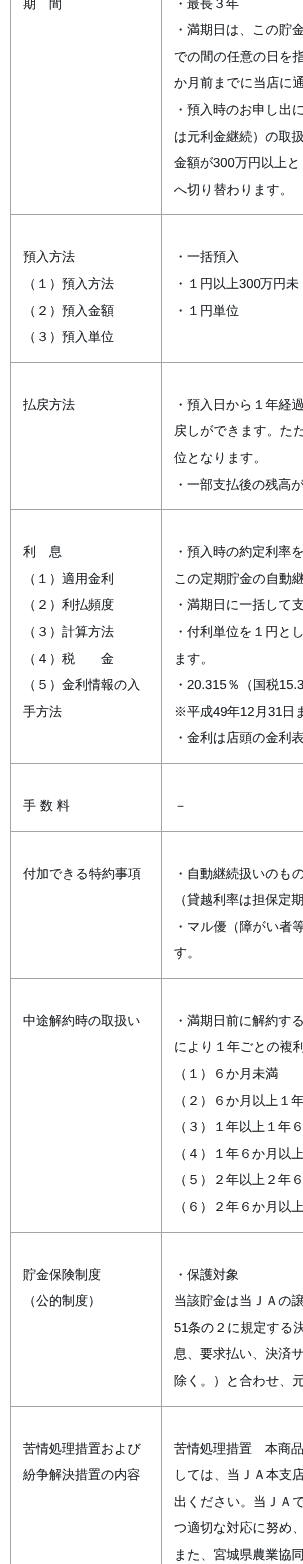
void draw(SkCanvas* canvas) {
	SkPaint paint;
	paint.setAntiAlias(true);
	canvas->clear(0xffffffff);
	paint.setColor(0xffa4a4a4);
	canvas->drawRect(SkRect::MakeXYWH(10, 0, 1, 1564), paint);
	SkFont f1(fontMgr->matchFamilyStyle("WenQuanYi Zen Hei", SkFontStyle(500, SkFontStyle::kNormal_Width, SkFontStyle::kUpright_Slant)), 13);
	f1.setSubpixel(true);
	paint.setColor(0xff212529);
	canvas->drawString("期　間", 23, 8, f1, paint);
	paint.setColor(0xffa4a4a4);
	canvas->drawRect(SkRect::MakeXYWH(161, 214, 142, 1), paint);
	canvas->drawRect(SkRect::MakeXYWH(161, 362, 142, 1), paint);
	canvas->drawRect(SkRect::MakeXYWH(161, 509, 142, 1), paint);
	canvas->drawRect(SkRect::MakeXYWH(161, 763, 142, 1), paint);
	canvas->drawRect(SkRect::MakeXYWH(161, 831, 142, 1), paint);
	canvas->drawRect(SkRect::MakeXYWH(161, 978, 142, 1), paint);
	canvas->drawRect(SkRect::MakeXYWH(161, 1232, 142, 1), paint);
	canvas->drawRect(SkRect::MakeXYWH(161, 1406, 142, 1), paint);
	canvas->drawRect(SkRect::MakeXYWH(161, 1406, 1, 158), paint);
	canvas->drawRect(SkRect::MakeXYWH(10, 1406, 152, 1), paint);
	canvas->drawRect(SkRect::MakeXYWH(161, 1232, 1, 175), paint);
	canvas->drawRect(SkRect::MakeXYWH(10, 1232, 152, 1), paint);
	canvas->drawRect(SkRect::MakeXYWH(161, 978, 1, 255), paint);
	canvas->drawRect(SkRect::MakeXYWH(10, 978, 152, 1), paint);
	canvas->drawRect(SkRect::MakeXYWH(161, 831, 1, 148), paint);
	canvas->drawRect(SkRect::MakeXYWH(10, 831, 152, 1), paint);
	canvas->drawRect(SkRect::MakeXYWH(161, 763, 1, 69), paint);
	canvas->drawRect(SkRect::MakeXYWH(10, 763, 152, 1), paint);
	canvas->drawRect(SkRect::MakeXYWH(161, 509, 1, 255), paint);
	canvas->drawRect(SkRect::MakeXYWH(10, 509, 152, 1), paint);
	canvas->drawRect(SkRect::MakeXYWH(161, 362, 1, 148), paint);
	canvas->drawRect(SkRect::MakeXYWH(10, 362, 152, 1), paint);
	canvas->drawRect(SkRect::MakeXYWH(161, 214, 1, 149), paint);
	canvas->drawRect(SkRect::MakeXYWH(10, 214, 152, 1), paint);
	canvas->drawRect(SkRect::MakeXYWH(161, 0, 1, 215), paint);
	paint.setColor(0xff212529);
	canvas->drawString("・最長３年", 174, 8, f1, paint);
	canvas->drawString("・満期日は、この貯金", 174, 34, f1, paint);
	canvas->drawString("での間の任意の日を指", 174, 61, f1, paint);
	canvas->drawString("か月前までに当店に通", 174, 87, f1, paint);
	canvas->drawString("・預入時のお申し出に", 174, 114, f1, paint);
	canvas->drawString("は元利金継続）の取扱", 174, 141, f1, paint);
	canvas->drawString("金額が", 174, 167, f1, paint);
	SkFont f2(fontMgr->matchFamilyStyle("Liberation Sans", SkFontStyle::Normal()), 13);
	f2.setSubpixel(true);
	canvas->drawString("300", 213, 167, f2, paint);
	canvas->drawString("万円以上と", 235, 167, f1, paint);
	canvas->drawString("へ切り替わります。", 174, 194, f1, paint);
	canvas->drawString("預入方法", 23, 261, f1, paint);
	canvas->drawString("（１）預入方法", 23, 288, f1, paint);
	canvas->drawString("（２）預入金額", 23, 315, f1, paint);
	canvas->drawString("（３）預入単位", 23, 341, f1, paint);
	canvas->drawString("・一括預入", 174, 261, f1, paint);
	canvas->drawString("・１円以上", 174, 288, f1, paint);
	canvas->drawString("300", 239, 288, f2, paint);
	canvas->drawString("万円未", 260, 288, f1, paint);
	canvas->drawString("・１円単位", 174, 315, f1, paint);
	canvas->drawString("払戻方法", 23, 409, f1, paint);
	canvas->drawString("・預入日から１年経過", 174, 409, f1, paint);
	canvas->drawString("戻しができます。ただ", 174, 435, f1, paint);
	canvas->drawString("位となります。", 174, 462, f1, paint);
	canvas->drawString("・一部支払後の残高が", 174, 489, f1, paint);
	canvas->drawString("利　息", 23, 556, f1, paint);
	canvas->drawString("（１）適用金利", 23, 583, f1, paint);
	canvas->drawString("（２）利払頻度", 23, 609, f1, paint);
	canvas->drawString("（３）計算方法", 23, 636, f1, paint);
	canvas->drawString("（４）税　　金", 23, 663, f1, paint);
	canvas->drawString("（５）金利情報の入", 23, 689, f1, paint);
	canvas->drawString("手方法", 23, 716, f1, paint);
	canvas->drawString("・預入時の約定利率を", 174, 556, f1, paint);
	canvas->drawString("この定期貯金の自動継", 174, 583, f1, paint);
	canvas->drawString("・満期日に一括して支", 174, 609, f1, paint);
	canvas->drawString("・付利単位を１円とし", 174, 636, f1, paint);
	canvas->drawString("ます。", 174, 663, f1, paint);
	canvas->drawString("・", 174, 689, f1, paint);
	canvas->drawString("20.315", 187, 689, f2, paint);
	canvas->drawString("％（国税", 227, 689, f1, paint);
	canvas->drawString("15.3", 279, 689, f2, paint);
	canvas->drawString("※平成", 174, 716, f1, paint);
	canvas->drawString("49", 213, 716, f2, paint);
	canvas->drawString("年", 227, 716, f1, paint);
	canvas->drawString("12", 240, 716, f2, paint);
	canvas->drawString("月", 255, 716, f1, paint);
	canvas->drawString("31", 268, 716, f2, paint);
	canvas->drawString("日ま", 282, 716, f1, paint);
	canvas->drawString("・金利は店頭の金利表", 174, 742, f1, paint);
	canvas->drawString("手 数 料", 23, 810, f1, paint);
	canvas->drawString("－", 174, 810, f1, paint);
	canvas->drawString("付加できる特約事項", 23, 878, f1, paint);
	canvas->drawString("・自動継続扱いのもの", 174, 878, f1, paint);
	canvas->drawString("（貸越利率は担保定期", 174, 904, f1, paint);
	canvas->drawString("・マル優（障がい者等", 174, 931, f1, paint);
	canvas->drawString("す。", 174, 957, f1, paint);
	canvas->drawString("中途解約時の取扱い", 23, 1025, f1, paint);
	canvas->drawString("・満期日前に解約する", 174, 1025, f1, paint);
	canvas->drawString("により１年ごとの複利", 174, 1051, f1, paint);
	canvas->drawString("（１）６か月未満", 174, 1078, f1, paint);
	canvas->drawString("（２）６か月以上１年", 174, 1105, f1, paint);
	canvas->drawString("（３）１年以上１年６", 174, 1131, f1, paint);
	canvas->drawString("（４）１年６か月以上", 174, 1158, f1, paint);
	canvas->drawString("（５）２年以上２年６", 174, 1184, f1, paint);
	canvas->drawString("（６）２年６か月以上", 174, 1211, f1, paint);
	canvas->drawString("貯金保険制度", 23, 1279, f1, paint);
	canvas->drawString("（公的制度）", 23, 1305, f1, paint);
	canvas->drawString("・保護対象", 174, 1279, f1, paint);
	canvas->drawString("当該貯金は当ＪＡの譲", 174, 1305, f1, paint);
	canvas->drawString("51", 174, 1332, f2, paint);
	canvas->drawString("条の２に規定する決", 188, 1332, f1, paint);
	canvas->drawString("息、要求払い、決済サ", 174, 1358, f1, paint);
	canvas->drawString("除く。）と合わせ、元", 174, 1385, f1, paint);
	canvas->drawString("苦情処理措置および", 23, 1453, f1, paint);
	canvas->drawString("紛争解決措置の内容", 23, 1479, f1, paint);
	canvas->drawString("苦情処理措置　本商品", 174, 1453, f1, paint);
	canvas->drawString("しては、当ＪＡ本支店", 174, 1479, f1, paint);
	canvas->drawString("出ください。当ＪＡで", 174, 1506, f1, paint);
	canvas->drawString("つ適切な対応に努め、", 174, 1532, f1, paint);
	canvas->drawString("また、宮城県農業協同", 174, 1559, f1, paint);
}
